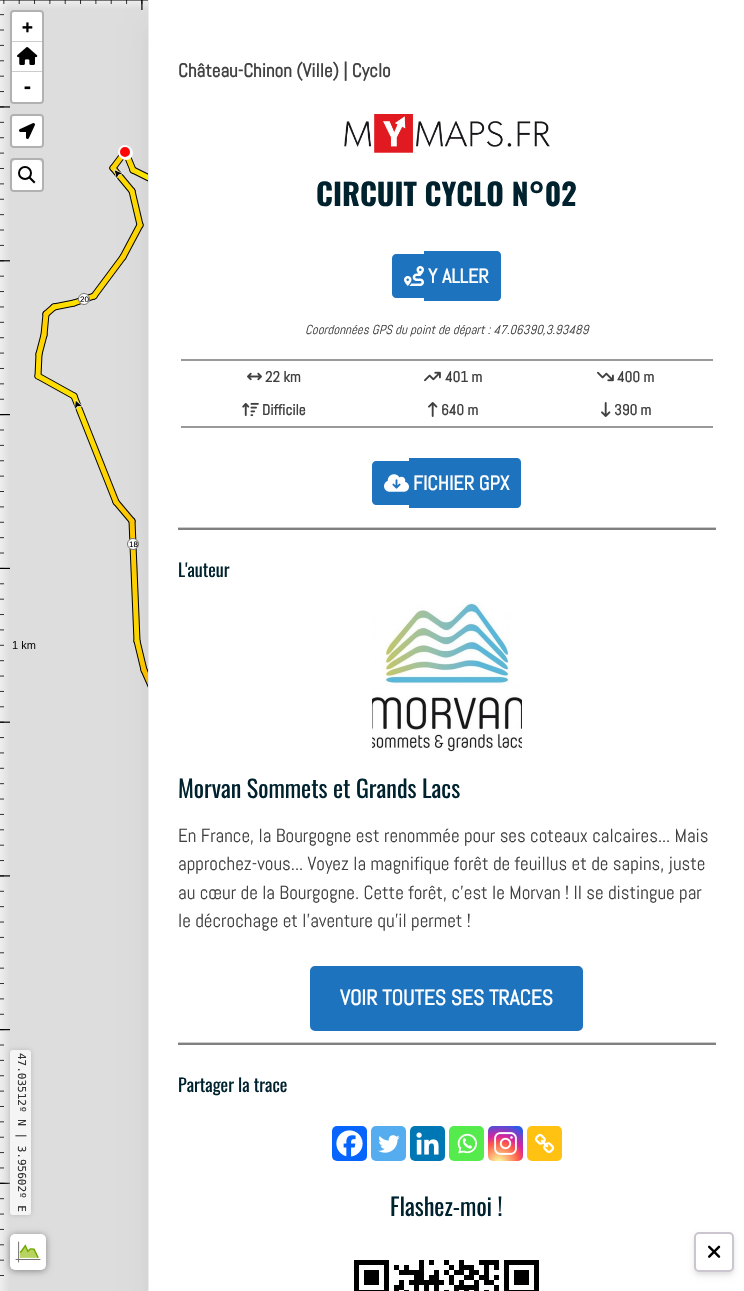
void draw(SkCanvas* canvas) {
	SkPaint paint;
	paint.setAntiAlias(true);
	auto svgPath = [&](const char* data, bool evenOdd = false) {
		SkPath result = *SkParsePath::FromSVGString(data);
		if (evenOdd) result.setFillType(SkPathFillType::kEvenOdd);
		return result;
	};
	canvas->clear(0xffdddddd);
	canvas->drawImageRect(SkImages::DeferredFromEncodedData(SkData::MakeFromFileName("img6.png")), SkRect::MakeXYWH(34, 154, 114, 534), SkSamplingOptions());
	canvas->drawImageRect(SkImages::DeferredFromEncodedData(SkData::MakeFromFileName("img5.png")), SkRect::MakeXYWH(118, 145, 15, 15), SkSamplingOptions());
	canvas->drawImageRect(SkImages::DeferredFromEncodedData(SkData::MakeFromFileName("img7.png")), SkRect::MakeXYWH(114, 169, 10, 11), SkSamplingOptions());
	paint.setColor(0xffffffff);
	canvas->drawCircle(84, 299, 5.5, paint);
	paint.setStroke(true);
	paint.setStrokeWidth(1);
	paint.setColor(0xff777777);
	canvas->drawCircle(84, 299, 5.5, paint);
	SkFont f1(fontMgr->matchFamilyStyle("Liberation Sans", SkFontStyle::Normal()), 8);
	f1.setSubpixel(true);
	paint.setStroke(false);
	paint.setColor(0xff000000);
	canvas->drawString("20", 80, 302, f1, paint);
	canvas->drawImageRect(SkImages::DeferredFromEncodedData(SkData::MakeFromFileName("img8.png")), SkRect::MakeXYWH(74, 399, 9, 11), SkSamplingOptions());
	paint.setColor(0xffffffff);
	canvas->drawCircle(133, 544, 5.5, paint);
	paint.setStroke(true);
	paint.setColor(0xff777777);
	canvas->drawCircle(133, 544, 5.5, paint);
	paint.setStroke(false);
	paint.setColor(0xff000000);
	canvas->drawString("18", 129, 547, f1, paint);
	canvas->drawImageRect(SkImages::DeferredFromEncodedData(SkData::MakeFromFileName("img4.png")), SkRect::MakeXYWH(0, 0, 148, 1291), SkSamplingOptions());
	paint.setStroke(true);
	paint.setStrokeWidth(2);
	paint.setColor(0xffb1b1b1);
	canvas->drawRoundRect(SkRect::MakeXYWH(11, 11, 32, 92), 3, 3, paint);
	paint.setStroke(false);
	paint.setColor(0xffffffff);
	canvas->drawPath(svgPath("M14 12H40C41 12 42 13 42 14V42H12V14C12 13 13 12 14 12Z"), paint);
	paint.setColor(0xffcccccc);
	canvas->drawRect(SkRect::MakeXYWH(12, 41, 30, 1), paint);
	SkFont f2(fontMgr->matchFamilyStyle("DejaVu Sans Mono", SkFontStyle::Bold()), 18);
	f2.setSubpixel(true);
	paint.setColor(0xff000000);
	canvas->drawString("+", 22, 33, f2, paint);
	paint.setColor(0xffffffff);
	canvas->drawRect(SkRect::MakeXYWH(12, 42, 30, 29), paint);
	paint.setColor(0xffcccccc);
	canvas->drawRect(SkRect::MakeXYWH(12, 71, 30, 1), paint);
	canvas->drawImageRect(SkImages::DeferredFromEncodedData(SkData::MakeFromFileName("img1.png")), SkRect::MakeXYWH(17, 47, 21, 18), SkSamplingOptions());
	paint.setColor(0xffffffff);
	canvas->drawPath(svgPath("M12 72H42V100C42 101 41 102 40 102H14C13 102 12 101 12 100Z"), paint);
	paint.setColor(0xff000000);
	canvas->drawString("-", 22, 93, f2, paint);
	paint.setStroke(true);
	paint.setColor(0xffb1b1b1);
	canvas->drawRoundRect(SkRect::MakeXYWH(11, 115, 32, 32), 3, 3, paint);
	paint.setStroke(false);
	paint.setColor(0xffffffff);
	canvas->drawRoundRect(SkRect::MakeXYWH(12, 116, 30, 30), 2, 2, paint);
	canvas->drawImageRect(SkImages::DeferredFromEncodedData(SkData::MakeFromFileName("img2.png")), SkRect::MakeXYWH(19, 123, 16, 16), SkSamplingOptions());
	paint.setStroke(true);
	paint.setColor(0xffb1b1b1);
	canvas->drawRoundRect(SkRect::MakeXYWH(11, 159, 32, 32), 3, 3, paint);
	paint.setStroke(false);
	paint.setColor(0xffffffff);
	canvas->drawPath(svgPath("M16 160H38C40 160 42 162 42 164V188C42 189 41 190 40 190H14C13 190 12 189 12 188V164C12 162 14 160 16 160Z"), paint);
	paint.setColor(0xff000000);
	canvas->drawPath(svgPath("M30 176.5L35.5 182L34 183.5L28.5 178Z"), paint);
	paint.setStroke(true);
	canvas->drawCircle(25, 173, 6, paint);
	canvas->save();
	canvas->clipPath(svgPath("M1 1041H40V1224H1ZM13 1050H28C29.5 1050 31 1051.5 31 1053V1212C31 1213.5 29.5 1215 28 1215H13C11.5 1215 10 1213.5 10 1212V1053C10 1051.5 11.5 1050 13 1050Z", true), true);
	paint.setStroke(false);
	paint.setColor(0xffbbbbbb);
	paint.setMaskFilter(SkMaskFilter::MakeBlur(kNormal_SkBlurStyle, 2.5));
	canvas->drawRoundRect(SkRect::MakeXYWH(10, 1050, 21, 165), 3, 3, paint);
	paint.setMaskFilter(nullptr);
	canvas->restore();
	paint.setColor(0xb3ffffff);
	canvas->drawRoundRect(SkRect::MakeXYWH(10, 1050, 21, 165), 3, 3, paint);
	SkFont f3(fontMgr->matchFamilyStyle("DejaVu Sans Mono", SkFontStyle::Normal()), 11);
	f3.setSubpixel(true);
	paint.setColor(0xff333333);
	canvas->save();
	canvas->rotate(90, 18, 1053);
	canvas->drawString("47.03512º N | 3.95602º E", 18, 1053, f3, paint);
	canvas->restore();
	paint.setColor(0x66000000);
	paint.setMaskFilter(SkMaskFilter::MakeBlur(kNormal_SkBlurStyle, 3.5));
	canvas->drawRoundRect(SkRect::MakeXYWH(10, 1235, 36, 36), 5, 5, paint);
	paint.setMaskFilter(nullptr);
	paint.setColor(0xffffffff);
	canvas->drawRoundRect(SkRect::MakeXYWH(10, 1234, 36, 36), 5, 5, paint);
	canvas->drawImageRect(SkImages::DeferredFromEncodedData(SkData::MakeFromFileName("img3.png")), SkRect::MakeXYWH(15, 1241, 26, 22), SkSamplingOptions());
	paint.setColor(0x1a000000);
	paint.setMaskFilter(SkMaskFilter::MakeBlur(kNormal_SkBlurStyle, 12.5));
	canvas->drawRect(SkRect::MakeXYWH(153, 25, 586, 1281), paint);
	paint.setMaskFilter(nullptr);
	paint.setColor(0xffffffff);
	canvas->drawRect(SkRect::MakeXYWH(149, 0, 595, 1291), paint);
	paint.setColor(0xffececec);
	canvas->drawRect(SkRect::MakeXYWH(148, 0, 1, 1291), paint);
	SkFont f4(fontMgr->matchFamilyStyle("Abel", SkFontStyle::Bold()), 19);
	f4.setSubpixel(true);
	paint.setColor(0xff404040);
	canvas->drawString("Château-Chinon (Ville) | Cyclo", 178, 77, f4, paint);
	canvas->drawImageRect(SkImages::DeferredFromEncodedData(SkData::MakeFromFileName("img9.png")), SkRect::MakeXYWH(344, 114, 206, 39), SkSamplingOptions());
	SkFont f5(fontMgr->matchFamilyStyle("Oswald", SkFontStyle::Bold()), 30);
	f5.setSubpixel(true);
	paint.setColor(0xff00222e);
	canvas->drawString("CIRCUIT CYCLO N°02", 316, 206, f5, paint);
	paint.setColor(0xff1e73be);
	canvas->drawPath(svgPath("M396 254H424V298H396C394 298 392 296 392 294V258C392 256 394 254 396 254Z"), paint);
	canvas->drawPath(svgPath("M424 251H497C499 251 501 253 501 255V297C501 299 499 301 497 301H424Z"), paint);
	canvas->drawImageRect(SkImages::DeferredFromEncodedData(SkData::MakeFromFileName("img10.png")), SkRect::MakeXYWH(404, 266, 20, 20), SkSamplingOptions());
	SkFont f6(fontMgr->matchFamilyStyle("Abel", SkFontStyle::Bold()), 20);
	f6.setSubpixel(true);
	paint.setColor(0xffffffff);
	canvas->drawString("Y ALLER", 428, 283, f6, paint);
	SkFont f7(fontMgr->matchFamilyStyle("Abel", SkFontStyle::Italic()), 13);
	f7.setSubpixel(true);
	paint.setColor(0xff404040);
	canvas->drawString("Coordonnées GPS du point de départ : 47.06390,3.93489", 305, 334, f7, paint);
	paint.setColor(0xff999999);
	canvas->drawRect(SkRect::MakeXYWH(178, 359, 538, 2), paint);
	canvas->drawRect(SkRect::MakeXYWH(178, 426, 538, 2), paint);
	paint.setColor(0xffffffff);
	canvas->drawRect(SkRect::MakeXYWH(713, 359, 3, 69), paint);
	canvas->drawRect(SkRect::MakeXYWH(178, 359, 3, 69), paint);
	canvas->drawImageRect(SkImages::DeferredFromEncodedData(SkData::MakeFromFileName("img11.png")), SkRect::MakeXYWH(247, 372, 15, 9), SkSamplingOptions());
	SkFont f8(fontMgr->matchFamilyStyle("Abel", SkFontStyle::Bold()), 15);
	f8.setSubpixel(true);
	paint.setColor(0xff404040);
	canvas->drawString("22 km", 265, 382, f8, paint);
	canvas->drawImageRect(SkImages::DeferredFromEncodedData(SkData::MakeFromFileName("img12.png")), SkRect::MakeXYWH(424, 371, 17, 11), SkSamplingOptions());
	canvas->drawString("401 m", 445, 382, f8, paint);
	canvas->drawImageRect(SkImages::DeferredFromEncodedData(SkData::MakeFromFileName("img13.png")), SkRect::MakeXYWH(597, 371, 17, 11), SkSamplingOptions());
	canvas->drawString("400 m", 617, 382, f8, paint);
	canvas->drawImageRect(SkImages::DeferredFromEncodedData(SkData::MakeFromFileName("img14.png")), SkRect::MakeXYWH(242, 402, 17, 15), SkSamplingOptions());
	canvas->drawString("Difficile", 262, 415, f8, paint);
	canvas->drawImageRect(SkImages::DeferredFromEncodedData(SkData::MakeFromFileName("img15.png")), SkRect::MakeXYWH(428, 402, 10, 15), SkSamplingOptions());
	canvas->drawString("640 m", 441, 415, f8, paint);
	canvas->drawImageRect(SkImages::DeferredFromEncodedData(SkData::MakeFromFileName("img16.png")), SkRect::MakeXYWH(601, 402, 10, 15), SkSamplingOptions());
	canvas->drawString("390 m", 614, 415, f8, paint);
	paint.setColor(0xff1e73be);
	canvas->drawPath(svgPath("M376 461H409V505H376C374 505 372 503 372 501V465C372 463 374 461 376 461Z"), paint);
	canvas->drawPath(svgPath("M409 458H517C519 458 521 460 521 462V504C521 506 519 508 517 508H409Z"), paint);
	canvas->drawImageRect(SkImages::DeferredFromEncodedData(SkData::MakeFromFileName("img17.png")), SkRect::MakeXYWH(384, 474, 25, 18), SkSamplingOptions());
	paint.setColor(0xffffffff);
	canvas->drawString("FICHIER GPX", 413, 490, f6, paint);
	paint.setColor(0xffcccccc);
	canvas->drawRect(SkRect::MakeXYWH(178, 527, 538, 1), paint);
	paint.setColor(0xff808080);
	canvas->drawRect(SkRect::MakeXYWH(178, 528, 538, 2), paint);
	SkFont f9(fontMgr->matchFamilyStyle("Oswald", SkFontStyle::Normal()), 18);
	f9.setSubpixel(true);
	paint.setColor(0xff00222e);
	canvas->drawString("L'auteur", 178, 577, f9, paint);
	canvas->drawImageRect(SkImages::DeferredFromEncodedData(SkData::MakeFromFileName("img18.png")), SkRect::MakeXYWH(372, 602, 150, 150), SkSamplingOptions());
	SkFont f10(fontMgr->matchFamilyStyle("Oswald", SkFontStyle::Normal()), 24);
	f10.setSubpixel(true);
	canvas->drawString("Morvan Sommets et Grands Lacs", 178, 798, f10, paint);
	SkFont f11(fontMgr->matchFamilyStyle("Abel", SkFontStyle::Normal()), 19);
	f11.setSubpixel(true);
	paint.setColor(0xff404040);
	canvas->drawString("En France, la Bourgogne est renommée pour ses coteaux calcaires... Mais", 178, 842, f11, paint);
	canvas->drawString("approchez-vous... Voyez la magnifique forêt de feuillus et de sapins, juste", 178, 870, f11, paint);
	canvas->drawString("au cœur de la Bourgogne. Cette forêt, c'est le Morvan ! Il se distingue par", 178, 899, f11, paint);
	canvas->drawString("le décrochage et l'aventure qu'il permet !", 178, 927, f11, paint);
	paint.setColor(0xff1e73be);
	canvas->drawRoundRect(SkRect::MakeXYWH(309, 965, 275, 67), 6, 6, paint);
	paint.setStroke(true);
	paint.setColor(0xffffffff);
	canvas->drawRoundRect(SkRect::MakeXYWH(309, 965, 275, 67), 6, 6, paint);
	SkFont f12(fontMgr->matchFamilyStyle("Abel", SkFontStyle::Bold()), 21.4);
	f12.setSubpixel(true);
	paint.setStroke(false);
	canvas->drawString("VOIR TOUTES SES TRACES", 340, 1005, f12, paint);
	paint.setColor(0xffcccccc);
	canvas->drawRect(SkRect::MakeXYWH(178, 1042, 538, 1), paint);
	paint.setColor(0xff808080);
	canvas->drawRect(SkRect::MakeXYWH(178, 1043, 538, 2), paint);
	paint.setColor(0xff00222e);
	canvas->drawString("Partager la trace", 178, 1092, f9, paint);
	paint.setColor(0xff0765fe);
	canvas->drawRoundRect(SkRect::MakeXYWH(332, 1126, 35, 35), 5, 5, paint);
	canvas->drawImageRect(SkImages::DeferredFromEncodedData(SkData::MakeFromFileName("img19.png")), SkRect::MakeXYWH(336, 1130, 27, 27), SkSamplingOptions());
	paint.setColor(0xff55acee);
	canvas->drawRoundRect(SkRect::MakeXYWH(371, 1126, 35, 35), 5, 5, paint);
	canvas->drawImageRect(SkImages::DeferredFromEncodedData(SkData::MakeFromFileName("img20.png")), SkRect::MakeXYWH(378, 1135, 22, 18), SkSamplingOptions());
	paint.setColor(0xff0077b5);
	canvas->drawRoundRect(SkRect::MakeXYWH(410, 1126, 35, 35), 5, 5, paint);
	canvas->drawImageRect(SkImages::DeferredFromEncodedData(SkData::MakeFromFileName("img21.png")), SkRect::MakeXYWH(416, 1132, 23, 23), SkSamplingOptions());
	paint.setColor(0xff55eb4c);
	canvas->drawRoundRect(SkRect::MakeXYWH(449, 1126, 35, 35), 5, 5, paint);
	canvas->drawImageRect(SkImages::DeferredFromEncodedData(SkData::MakeFromFileName("img22.png")), SkRect::MakeXYWH(457, 1133, 20, 21), SkSamplingOptions());
	{
		const SkColor colors[] = {0xfffdf497, 0xfffdf497, 0xfffd5949, 0xffd6249f, 0xff285aeb};
		const float stops[] = {0, 0.05, 0.45, 0.6, 0.9};
		paint.setShader(SkGradientShader::MakeRadial({499, 1163}, 45, colors, stops, 5, SkTileMode::kClamp));
		paint.setAlpha(255);
	}
	canvas->drawRoundRect(SkRect::MakeXYWH(488, 1126, 35, 35), 5, 5, paint);
	canvas->drawImageRect(SkImages::DeferredFromEncodedData(SkData::MakeFromFileName("img23.png")), SkRect::MakeXYWH(494, 1132, 23, 23), SkSamplingOptions());
	paint.setShader(nullptr);
	paint.setColor(0xffffc112);
	canvas->drawRoundRect(SkRect::MakeXYWH(527, 1126, 35, 35), 5, 5, paint);
	canvas->drawImageRect(SkImages::DeferredFromEncodedData(SkData::MakeFromFileName("img24.png")), SkRect::MakeXYWH(534, 1133, 21, 21), SkSamplingOptions());
	paint.setColor(0xff00222e);
	canvas->drawString("Flashez-moi !", 390, 1216, f10, paint);
	canvas->drawImageRect(SkImages::DeferredFromEncodedData(SkData::MakeFromFileName("img25.png")), SkRect::MakeXYWH(354, 1260, 185, 31), SkSamplingOptions());
	paint.setColor(0x0f000000);
	paint.setMaskFilter(SkMaskFilter::MakeBlur(kNormal_SkBlurStyle, 2));
	canvas->drawRoundRect(SkRect::MakeXYWH(695, 1235, 38, 38), 4, 4, paint);
	paint.setMaskFilter(nullptr);
	paint.setColor(0x1a000000);
	paint.setMaskFilter(SkMaskFilter::MakeBlur(kNormal_SkBlurStyle, 3));
	canvas->drawRoundRect(SkRect::MakeXYWH(695, 1237, 38, 38), 4, 4, paint);
	paint.setMaskFilter(nullptr);
	paint.setColor(0xffffffff);
	canvas->drawRoundRect(SkRect::MakeXYWH(695, 1233, 38, 38), 4, 4, paint);
	paint.setStroke(true);
	paint.setColor(0xffcbc5cf);
	canvas->drawRoundRect(SkRect::MakeXYWH(695, 1233, 38, 38), 4, 4, paint);
	canvas->drawImageRect(SkImages::DeferredFromEncodedData(SkData::MakeFromFileName("img26.png")), SkRect::MakeXYWH(708, 1245, 13, 13), SkSamplingOptions());
}
